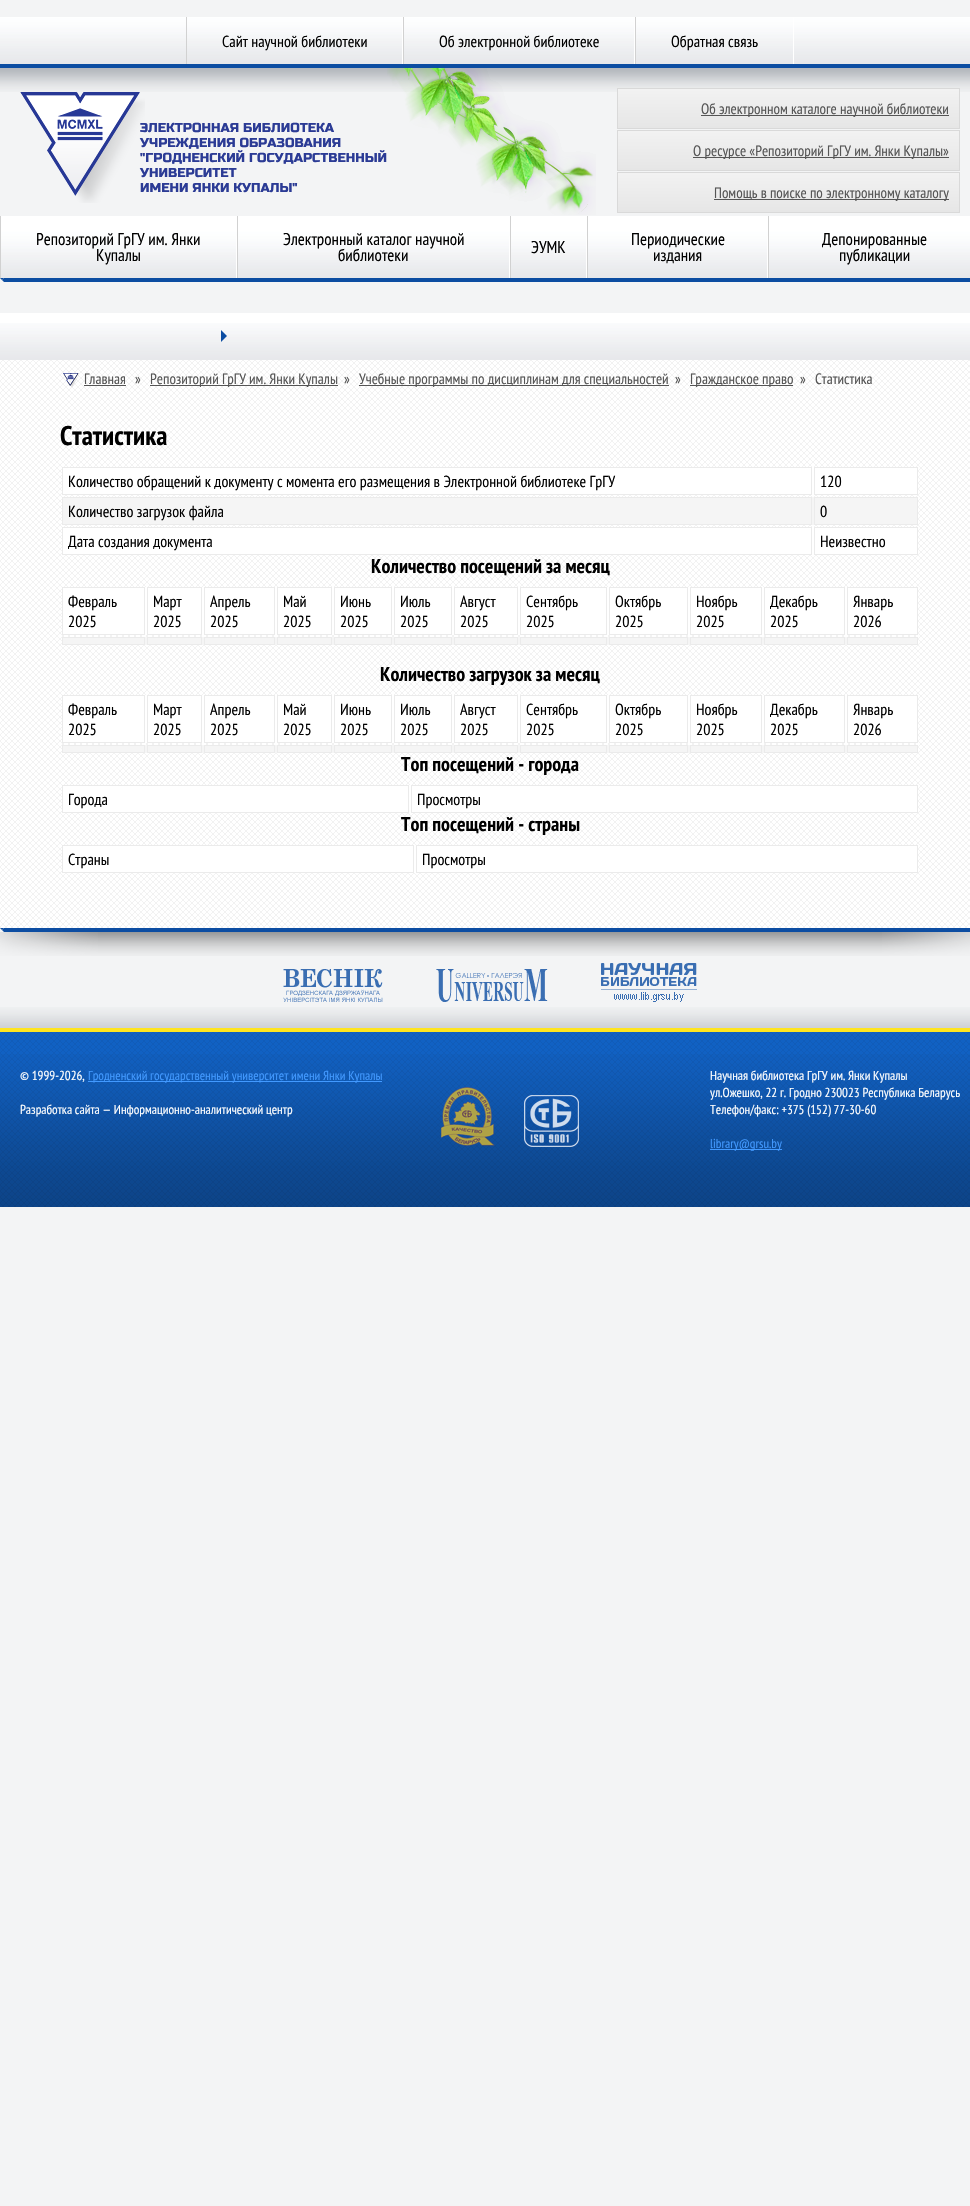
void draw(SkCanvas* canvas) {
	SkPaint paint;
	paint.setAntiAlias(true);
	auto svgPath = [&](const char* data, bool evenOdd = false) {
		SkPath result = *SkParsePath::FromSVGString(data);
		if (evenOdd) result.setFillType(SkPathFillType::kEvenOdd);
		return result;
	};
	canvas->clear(0xfff3f4f5);
	canvas->drawImageRect(SkImages::DeferredFromEncodedData(SkData::MakeFromFileName("img1.png")), SkRect::MakeXYWH(0, 17, 970, 47), SkSamplingOptions());
	paint.setColor(0xff0c4da2);
	canvas->drawRect(SkRect::MakeXYWH(0, 64, 970, 4), paint);
	paint.setColor(0xffffffff);
	canvas->drawRect(SkRect::MakeXYWH(402, 17, 1, 47), paint);
	paint.setColor(0xffd1d1d1);
	canvas->drawRect(SkRect::MakeXYWH(186, 17, 1, 47), paint);
	SkFont f1(fontMgr->matchFamilyStyle("PT Sans Narrow", SkFontStyle::Normal()), 16);
	f1.setSubpixel(true);
	paint.setColor(0xff000000);
	canvas->drawString("Сайт научной библиотеки", 222, 47, f1, paint);
	paint.setColor(0xffffffff);
	canvas->drawRect(SkRect::MakeXYWH(634, 17, 1, 47), paint);
	paint.setColor(0xffd1d1d1);
	canvas->drawRect(SkRect::MakeXYWH(403, 17, 1, 47), paint);
	paint.setColor(0xff000000);
	canvas->drawString("Об электронной библиотеке", 439, 47, f1, paint);
	paint.setColor(0xffffffff);
	canvas->drawRect(SkRect::MakeXYWH(793, 17, 1, 47), paint);
	paint.setColor(0xffd1d1d1);
	canvas->drawRect(SkRect::MakeXYWH(635, 17, 1, 47), paint);
	paint.setColor(0xff000000);
	canvas->drawString("Обратная связь", 671, 47, f1, paint);
	canvas->drawImageRect(SkImages::DeferredFromEncodedData(SkData::MakeFromFileName("img2.png")), SkRect::MakeXYWH(0, 68, 970, 24), SkSamplingOptions());
	canvas->drawImageRect(SkImages::DeferredFromEncodedData(SkData::MakeFromFileName("img3.png")), SkRect::MakeXYWH(20, 92, 125, 111), SkSamplingOptions());
	SkFont f2(fontMgr->matchFamilyStyle("Russo One", SkFontStyle::Normal()), 13);
	f2.setSubpixel(true);
	paint.setColor(0xff2b3b95);
	canvas->drawString("ЭЛЕКТРОННАЯ БИБЛИОТЕКА", 140, 132, f2, paint);
	canvas->drawString("УЧРЕЖДЕНИЯ ОБРАЗОВАНИЯ", 140, 147, f2, paint);
	canvas->drawString("\"ГРОДНЕНСКИЙ ГОСУДАРСТВЕННЫЙ", 140, 162, f2, paint);
	canvas->drawString("УНИВЕРСИТЕТ", 140, 177, f2, paint);
	canvas->drawString("ИМЕНИ ЯНКИ КУПАЛЫ\"", 140, 192, f2, paint);
	canvas->drawImageRect(SkImages::DeferredFromEncodedData(SkData::MakeFromFileName("img4.png")), SkRect::MakeXYWH(387, 68, 209, 147), SkSamplingOptions());
	{
		const SkColor colors[] = {0xfff2f2f2, 0xffe6e6e6};
		const float stops[] = {0, 1};
		const SkPoint ends[] = {{618, 89}, {618, 128}};
		paint.setShader(SkGradientShader::MakeLinear(ends, colors, stops, 2, SkTileMode::kClamp));
		paint.setAlpha(255);
	}
	canvas->drawRect(SkRect::MakeXYWH(618, 89, 341, 39), paint);
	paint.setStroke(true);
	paint.setStrokeWidth(1);
	paint.setShader(nullptr);
	paint.setColor(0xffd9d9d9);
	canvas->drawRect(SkRect::MakeXYWH(617.5, 88.5, 342, 40), paint);
	paint.setStroke(false);
	paint.setColor(0xff555555);
	canvas->drawRect(SkRect::MakeXYWH(701, 115, 248, 1), paint);
	SkFont f3(fontMgr->matchFamilyStyle("PT Sans Narrow", SkFontStyle::Normal()), 15);
	f3.setSubpixel(true);
	canvas->drawString("Об электронном каталоге научной библиотеки", 701, 114, f3, paint);
	{
		const SkColor colors[] = {0xfff2f2f2, 0xffe6e6e6};
		const float stops[] = {0, 1};
		const SkPoint ends[] = {{618, 131}, {618, 170}};
		paint.setShader(SkGradientShader::MakeLinear(ends, colors, stops, 2, SkTileMode::kClamp));
		paint.setAlpha(255);
	}
	canvas->drawRect(SkRect::MakeXYWH(618, 131, 341, 39), paint);
	paint.setStroke(true);
	paint.setShader(nullptr);
	paint.setColor(0xffd9d9d9);
	canvas->drawRect(SkRect::MakeXYWH(617.5, 130.5, 342, 40), paint);
	paint.setStroke(false);
	paint.setColor(0xff555555);
	canvas->drawRect(SkRect::MakeXYWH(693, 157, 256, 1), paint);
	canvas->drawString("О ресурсе «Репозиторий ГрГУ им. Янки Купалы»", 693, 156, f3, paint);
	{
		const SkColor colors[] = {0xfff2f2f2, 0xffe6e6e6};
		const float stops[] = {0, 1};
		const SkPoint ends[] = {{618, 173}, {618, 212}};
		paint.setShader(SkGradientShader::MakeLinear(ends, colors, stops, 2, SkTileMode::kClamp));
		paint.setAlpha(255);
	}
	canvas->drawRect(SkRect::MakeXYWH(618, 173, 341, 39), paint);
	paint.setStroke(true);
	paint.setShader(nullptr);
	paint.setColor(0xffd9d9d9);
	canvas->drawRect(SkRect::MakeXYWH(617.5, 172.5, 342, 40), paint);
	paint.setStroke(false);
	paint.setColor(0xff555555);
	canvas->drawRect(SkRect::MakeXYWH(714, 199, 235, 1), paint);
	canvas->drawString("Помощь в поиске по электронному каталогу", 714, 198, f3, paint);
	canvas->drawImageRect(SkImages::DeferredFromEncodedData(SkData::MakeFromFileName("img5.png")), SkRect::MakeXYWH(1, 216, 969, 62), SkSamplingOptions());
	paint.setColor(0xffffffff);
	canvas->drawRect(SkRect::MakeXYWH(236, 236, 1, 42), paint);
	paint.setColor(0xffd1d1d1);
	canvas->drawRect(SkRect::MakeXYWH(0, 216, 1, 62), paint);
	SkFont f4(fontMgr->matchFamilyStyle("PT Sans Narrow", SkFontStyle::Normal()), 17);
	f4.setSubpixel(true);
	paint.setColor(0xff000000);
	canvas->drawString("Репозиторий ГрГУ им. Янки", 36, 245, f4, paint);
	canvas->drawString("Купалы", 96, 261, f4, paint);
	paint.setColor(0xffffffff);
	canvas->drawRect(SkRect::MakeXYWH(509, 236, 1, 42), paint);
	paint.setColor(0xffd1d1d1);
	canvas->drawRect(SkRect::MakeXYWH(237, 216, 1, 62), paint);
	paint.setColor(0xff000000);
	canvas->drawString("Электронный каталог научной", 283, 245, f4, paint);
	canvas->drawString("библиотеки", 338, 261, f4, paint);
	paint.setColor(0xffffffff);
	canvas->drawRect(SkRect::MakeXYWH(586, 236, 1, 42), paint);
	paint.setColor(0xffd1d1d1);
	canvas->drawRect(SkRect::MakeXYWH(510, 216, 1, 62), paint);
	paint.setColor(0xff000000);
	canvas->drawString("ЭУМК", 531, 253, f4, paint);
	paint.setColor(0xffffffff);
	canvas->drawRect(SkRect::MakeXYWH(767, 236, 1, 42), paint);
	paint.setColor(0xffd1d1d1);
	canvas->drawRect(SkRect::MakeXYWH(587, 216, 1, 62), paint);
	paint.setColor(0xff000000);
	canvas->drawString("Периодические", 631, 245, f4, paint);
	canvas->drawString("издания", 653, 261, f4, paint);
	paint.setColor(0xffd1d1d1);
	canvas->drawRect(SkRect::MakeXYWH(768, 216, 1, 62), paint);
	paint.setColor(0xff000000);
	canvas->drawString("Депонированные", 822, 245, f4, paint);
	canvas->drawString("публикации", 839, 261, f4, paint);
	paint.setColor(0xff0c4da2);
	canvas->drawPath(svgPath("M0 278H4L2 280Z"), paint);
	canvas->drawPath(svgPath("M4 278V282L2 280Z"), paint);
	canvas->drawRect(SkRect::MakeXYWH(4, 278, 966, 4), paint);
	paint.setColor(0xffffffff);
	canvas->drawRect(SkRect::MakeXYWH(0, 313, 970, 10), paint);
	canvas->drawImageRect(SkImages::DeferredFromEncodedData(SkData::MakeFromFileName("img6.png")), SkRect::MakeXYWH(0, 323, 970, 37), SkSamplingOptions());
	paint.setColor(0xff0c4da2);
	canvas->drawPath(svgPath("M221 342V330L227 336Z"), paint);
	paint.setColor(0xffffffff);
	canvas->drawRect(SkRect::MakeXYWH(0, 360, 970, 568), paint);
	canvas->drawImageRect(SkImages::DeferredFromEncodedData(SkData::MakeFromFileName("img7.png")), SkRect::MakeXYWH(0, 360, 970, 568), SkSamplingOptions());
	canvas->drawImageRect(SkImages::DeferredFromEncodedData(SkData::MakeFromFileName("img8.png")), SkRect::MakeXYWH(63, 373, 16, 14), SkSamplingOptions());
	paint.setColor(0xff555555);
	canvas->drawString("Главная", 84, 384, f3, paint);
	canvas->drawRect(SkRect::MakeXYWH(84, 385, 42, 1), paint);
	canvas->drawString("»", 135, 384, f3, paint);
	canvas->drawRect(SkRect::MakeXYWH(150, 385, 188, 1), paint);
	canvas->drawString("Репозиторий ГрГУ им. Янки Купалы", 150, 384, f3, paint);
	canvas->drawString("»", 344, 384, f3, paint);
	canvas->drawRect(SkRect::MakeXYWH(359, 385, 310, 1), paint);
	canvas->drawString("Учебные программы по дисциплинам для специальностей", 359, 384, f3, paint);
	canvas->drawString("»", 675, 384, f3, paint);
	canvas->drawRect(SkRect::MakeXYWH(690, 385, 103, 1), paint);
	canvas->drawString("Гражданское право", 690, 384, f3, paint);
	canvas->drawString("»", 800, 384, f3, paint);
	canvas->drawString("Статистика", 815, 384, f3, paint);
	SkFont f5(fontMgr->matchFamilyStyle("PT Sans Narrow", SkFontStyle::Bold()), 27);
	f5.setSubpixel(true);
	paint.setColor(0xff000000);
	canvas->drawString("Статистика", 60, 445, f5, paint);
	paint.setColor(0xffffffff);
	canvas->drawRect(SkRect::MakeXYWH(63, 467, 854, 28), paint);
	paint.setStroke(true);
	paint.setColor(0xffebebeb);
	canvas->drawRect(SkRect::MakeXYWH(62.5, 467.5, 749, 27), paint);
	paint.setStroke(false);
	paint.setColor(0xff000000);
	canvas->drawString("Количество обращений к документу с момента его размещения в Электронной библиотеке ГрГУ", 68, 487, f1, paint);
	paint.setStroke(true);
	paint.setColor(0xffebebeb);
	canvas->drawRect(SkRect::MakeXYWH(814.5, 467.5, 103, 27), paint);
	paint.setStroke(false);
	paint.setColor(0xff000000);
	canvas->drawString("120", 820, 487, f1, paint);
	paint.setColor(0xfff5f5f5);
	canvas->drawRect(SkRect::MakeXYWH(63, 497, 854, 28), paint);
	paint.setStroke(true);
	paint.setColor(0xffebebeb);
	canvas->drawRect(SkRect::MakeXYWH(62.5, 497.5, 749, 27), paint);
	paint.setStroke(false);
	paint.setColor(0xff000000);
	canvas->drawString("Количество загрузок файла", 68, 517, f1, paint);
	paint.setStroke(true);
	paint.setColor(0xffebebeb);
	canvas->drawRect(SkRect::MakeXYWH(814.5, 497.5, 103, 27), paint);
	paint.setStroke(false);
	paint.setColor(0xff000000);
	canvas->drawString("0", 820, 517, f1, paint);
	paint.setColor(0xffffffff);
	canvas->drawRect(SkRect::MakeXYWH(63, 527, 854, 28), paint);
	paint.setStroke(true);
	paint.setColor(0xffebebeb);
	canvas->drawRect(SkRect::MakeXYWH(62.5, 527.5, 749, 27), paint);
	paint.setStroke(false);
	paint.setColor(0xff000000);
	canvas->drawString("Дата создания документа", 68, 547, f1, paint);
	paint.setStroke(true);
	paint.setColor(0xffebebeb);
	canvas->drawRect(SkRect::MakeXYWH(814.5, 527.5, 103, 27), paint);
	paint.setStroke(false);
	paint.setColor(0xff000000);
	canvas->drawString("Неизвестно", 820, 547, f1, paint);
	SkFont f6(fontMgr->matchFamilyStyle("PT Sans Narrow", SkFontStyle::Bold()), 20);
	f6.setSubpixel(true);
	canvas->drawString("Количество посещений за месяц", 371, 573, f6, paint);
	paint.setColor(0xffffffff);
	canvas->drawRect(SkRect::MakeXYWH(63, 587, 854, 48), paint);
	paint.setStroke(true);
	paint.setColor(0xffebebeb);
	canvas->drawRect(SkRect::MakeXYWH(62.5, 587.5, 82, 47), paint);
	paint.setStroke(false);
	paint.setColor(0xff000000);
	canvas->drawString("Февраль", 68, 607, f1, paint);
	canvas->drawString("2025", 68, 627, f1, paint);
	paint.setStroke(true);
	paint.setColor(0xffebebeb);
	canvas->drawRect(SkRect::MakeXYWH(147.5, 587.5, 54, 47), paint);
	paint.setStroke(false);
	paint.setColor(0xff000000);
	canvas->drawString("Март", 153, 607, f1, paint);
	canvas->drawString("2025", 153, 627, f1, paint);
	paint.setStroke(true);
	paint.setColor(0xffebebeb);
	canvas->drawRect(SkRect::MakeXYWH(204.5, 587.5, 70, 47), paint);
	paint.setStroke(false);
	paint.setColor(0xff000000);
	canvas->drawString("Апрель", 210, 607, f1, paint);
	canvas->drawString("2025", 210, 627, f1, paint);
	paint.setStroke(true);
	paint.setColor(0xffebebeb);
	canvas->drawRect(SkRect::MakeXYWH(277.5, 587.5, 54, 47), paint);
	paint.setStroke(false);
	paint.setColor(0xff000000);
	canvas->drawString("Май", 283, 607, f1, paint);
	canvas->drawString("2025", 283, 627, f1, paint);
	paint.setStroke(true);
	paint.setColor(0xffebebeb);
	canvas->drawRect(SkRect::MakeXYWH(334.5, 587.5, 57, 47), paint);
	paint.setStroke(false);
	paint.setColor(0xff000000);
	canvas->drawString("Июнь", 340, 607, f1, paint);
	canvas->drawString("2025", 340, 627, f1, paint);
	paint.setStroke(true);
	paint.setColor(0xffebebeb);
	canvas->drawRect(SkRect::MakeXYWH(394.5, 587.5, 57, 47), paint);
	paint.setStroke(false);
	paint.setColor(0xff000000);
	canvas->drawString("Июль", 400, 607, f1, paint);
	canvas->drawString("2025", 400, 627, f1, paint);
	paint.setStroke(true);
	paint.setColor(0xffebebeb);
	canvas->drawRect(SkRect::MakeXYWH(454.5, 587.5, 63, 47), paint);
	paint.setStroke(false);
	paint.setColor(0xff000000);
	canvas->drawString("Август", 460, 607, f1, paint);
	canvas->drawString("2025", 460, 627, f1, paint);
	paint.setStroke(true);
	paint.setColor(0xffebebeb);
	canvas->drawRect(SkRect::MakeXYWH(520.5, 587.5, 86, 47), paint);
	paint.setStroke(false);
	paint.setColor(0xff000000);
	canvas->drawString("Сентябрь", 526, 607, f1, paint);
	canvas->drawString("2025", 526, 627, f1, paint);
	paint.setStroke(true);
	paint.setColor(0xffebebeb);
	canvas->drawRect(SkRect::MakeXYWH(609.5, 587.5, 78, 47), paint);
	paint.setStroke(false);
	paint.setColor(0xff000000);
	canvas->drawString("Октябрь", 615, 607, f1, paint);
	canvas->drawString("2025", 615, 627, f1, paint);
	paint.setStroke(true);
	paint.setColor(0xffebebeb);
	canvas->drawRect(SkRect::MakeXYWH(690.5, 587.5, 71, 47), paint);
	paint.setStroke(false);
	paint.setColor(0xff000000);
	canvas->drawString("Ноябрь", 696, 607, f1, paint);
	canvas->drawString("2025", 696, 627, f1, paint);
	paint.setStroke(true);
	paint.setColor(0xffebebeb);
	canvas->drawRect(SkRect::MakeXYWH(764.5, 587.5, 80, 47), paint);
	paint.setStroke(false);
	paint.setColor(0xff000000);
	canvas->drawString("Декабрь", 770, 607, f1, paint);
	canvas->drawString("2025", 770, 627, f1, paint);
	paint.setStroke(true);
	paint.setColor(0xffebebeb);
	canvas->drawRect(SkRect::MakeXYWH(847.5, 587.5, 70, 47), paint);
	paint.setStroke(false);
	paint.setColor(0xff000000);
	canvas->drawString("Январь", 853, 607, f1, paint);
	canvas->drawString("2026", 853, 627, f1, paint);
	paint.setColor(0xfff5f5f5);
	canvas->drawRect(SkRect::MakeXYWH(62, 637, 856, 8), paint);
	paint.setStroke(true);
	paint.setColor(0xffebebeb);
	canvas->drawRect(SkRect::MakeXYWH(62.5, 637.5, 82, 7), paint);
	canvas->drawRect(SkRect::MakeXYWH(147.5, 637.5, 54, 7), paint);
	canvas->drawRect(SkRect::MakeXYWH(204.5, 637.5, 70, 7), paint);
	canvas->drawRect(SkRect::MakeXYWH(277.5, 637.5, 54, 7), paint);
	canvas->drawRect(SkRect::MakeXYWH(334.5, 637.5, 57, 7), paint);
	canvas->drawRect(SkRect::MakeXYWH(394.5, 637.5, 57, 7), paint);
	canvas->drawRect(SkRect::MakeXYWH(454.5, 637.5, 63, 7), paint);
	canvas->drawRect(SkRect::MakeXYWH(520.5, 637.5, 86, 7), paint);
	canvas->drawRect(SkRect::MakeXYWH(609.5, 637.5, 78, 7), paint);
	canvas->drawRect(SkRect::MakeXYWH(690.5, 637.5, 71, 7), paint);
	canvas->drawRect(SkRect::MakeXYWH(764.5, 637.5, 80, 7), paint);
	canvas->drawRect(SkRect::MakeXYWH(847.5, 637.5, 70, 7), paint);
	paint.setStroke(false);
	paint.setColor(0xff000000);
	canvas->drawString("Количество загрузок за месяц", 380, 681, f6, paint);
	paint.setColor(0xffffffff);
	canvas->drawRect(SkRect::MakeXYWH(63, 695, 854, 48), paint);
	paint.setStroke(true);
	paint.setColor(0xffebebeb);
	canvas->drawRect(SkRect::MakeXYWH(62.5, 695.5, 82, 47), paint);
	paint.setStroke(false);
	paint.setColor(0xff000000);
	canvas->drawString("Февраль", 68, 715, f1, paint);
	canvas->drawString("2025", 68, 735, f1, paint);
	paint.setStroke(true);
	paint.setColor(0xffebebeb);
	canvas->drawRect(SkRect::MakeXYWH(147.5, 695.5, 54, 47), paint);
	paint.setStroke(false);
	paint.setColor(0xff000000);
	canvas->drawString("Март", 153, 715, f1, paint);
	canvas->drawString("2025", 153, 735, f1, paint);
	paint.setStroke(true);
	paint.setColor(0xffebebeb);
	canvas->drawRect(SkRect::MakeXYWH(204.5, 695.5, 70, 47), paint);
	paint.setStroke(false);
	paint.setColor(0xff000000);
	canvas->drawString("Апрель", 210, 715, f1, paint);
	canvas->drawString("2025", 210, 735, f1, paint);
	paint.setStroke(true);
	paint.setColor(0xffebebeb);
	canvas->drawRect(SkRect::MakeXYWH(277.5, 695.5, 54, 47), paint);
	paint.setStroke(false);
	paint.setColor(0xff000000);
	canvas->drawString("Май", 283, 715, f1, paint);
	canvas->drawString("2025", 283, 735, f1, paint);
	paint.setStroke(true);
	paint.setColor(0xffebebeb);
	canvas->drawRect(SkRect::MakeXYWH(334.5, 695.5, 57, 47), paint);
	paint.setStroke(false);
	paint.setColor(0xff000000);
	canvas->drawString("Июнь", 340, 715, f1, paint);
	canvas->drawString("2025", 340, 735, f1, paint);
	paint.setStroke(true);
	paint.setColor(0xffebebeb);
	canvas->drawRect(SkRect::MakeXYWH(394.5, 695.5, 57, 47), paint);
	paint.setStroke(false);
	paint.setColor(0xff000000);
	canvas->drawString("Июль", 400, 715, f1, paint);
	canvas->drawString("2025", 400, 735, f1, paint);
	paint.setStroke(true);
	paint.setColor(0xffebebeb);
	canvas->drawRect(SkRect::MakeXYWH(454.5, 695.5, 63, 47), paint);
	paint.setStroke(false);
	paint.setColor(0xff000000);
	canvas->drawString("Август", 460, 715, f1, paint);
	canvas->drawString("2025", 460, 735, f1, paint);
	paint.setStroke(true);
	paint.setColor(0xffebebeb);
	canvas->drawRect(SkRect::MakeXYWH(520.5, 695.5, 86, 47), paint);
	paint.setStroke(false);
	paint.setColor(0xff000000);
	canvas->drawString("Сентябрь", 526, 715, f1, paint);
	canvas->drawString("2025", 526, 735, f1, paint);
	paint.setStroke(true);
	paint.setColor(0xffebebeb);
	canvas->drawRect(SkRect::MakeXYWH(609.5, 695.5, 78, 47), paint);
	paint.setStroke(false);
	paint.setColor(0xff000000);
	canvas->drawString("Октябрь", 615, 715, f1, paint);
	canvas->drawString("2025", 615, 735, f1, paint);
	paint.setStroke(true);
	paint.setColor(0xffebebeb);
	canvas->drawRect(SkRect::MakeXYWH(690.5, 695.5, 71, 47), paint);
	paint.setStroke(false);
	paint.setColor(0xff000000);
	canvas->drawString("Ноябрь", 696, 715, f1, paint);
	canvas->drawString("2025", 696, 735, f1, paint);
	paint.setStroke(true);
	paint.setColor(0xffebebeb);
	canvas->drawRect(SkRect::MakeXYWH(764.5, 695.5, 80, 47), paint);
	paint.setStroke(false);
	paint.setColor(0xff000000);
	canvas->drawString("Декабрь", 770, 715, f1, paint);
	canvas->drawString("2025", 770, 735, f1, paint);
	paint.setStroke(true);
	paint.setColor(0xffebebeb);
	canvas->drawRect(SkRect::MakeXYWH(847.5, 695.5, 70, 47), paint);
	paint.setStroke(false);
	paint.setColor(0xff000000);
	canvas->drawString("Январь", 853, 715, f1, paint);
	canvas->drawString("2026", 853, 735, f1, paint);
	paint.setColor(0xfff5f5f5);
	canvas->drawRect(SkRect::MakeXYWH(62, 745, 856, 8), paint);
	paint.setStroke(true);
	paint.setColor(0xffebebeb);
	canvas->drawRect(SkRect::MakeXYWH(62.5, 745.5, 82, 7), paint);
	canvas->drawRect(SkRect::MakeXYWH(147.5, 745.5, 54, 7), paint);
	canvas->drawRect(SkRect::MakeXYWH(204.5, 745.5, 70, 7), paint);
	canvas->drawRect(SkRect::MakeXYWH(277.5, 745.5, 54, 7), paint);
	canvas->drawRect(SkRect::MakeXYWH(334.5, 745.5, 57, 7), paint);
	canvas->drawRect(SkRect::MakeXYWH(394.5, 745.5, 57, 7), paint);
	canvas->drawRect(SkRect::MakeXYWH(454.5, 745.5, 63, 7), paint);
	canvas->drawRect(SkRect::MakeXYWH(520.5, 745.5, 86, 7), paint);
	canvas->drawRect(SkRect::MakeXYWH(609.5, 745.5, 78, 7), paint);
	canvas->drawRect(SkRect::MakeXYWH(690.5, 745.5, 71, 7), paint);
	canvas->drawRect(SkRect::MakeXYWH(764.5, 745.5, 80, 7), paint);
	canvas->drawRect(SkRect::MakeXYWH(847.5, 745.5, 70, 7), paint);
	paint.setStroke(false);
	paint.setColor(0xff000000);
	canvas->drawString("Топ посещений - города", 401, 771, f6, paint);
	paint.setColor(0xffffffff);
	canvas->drawRect(SkRect::MakeXYWH(63, 785, 854, 28), paint);
	paint.setStroke(true);
	paint.setColor(0xffebebeb);
	canvas->drawRect(SkRect::MakeXYWH(62.5, 785.5, 346, 27), paint);
	paint.setStroke(false);
	paint.setColor(0xff000000);
	canvas->drawString("Города", 68, 805, f1, paint);
	paint.setStroke(true);
	paint.setColor(0xffebebeb);
	canvas->drawRect(SkRect::MakeXYWH(411.5, 785.5, 506, 27), paint);
	paint.setStroke(false);
	paint.setColor(0xff000000);
	canvas->drawString("Просмотры", 417, 805, f1, paint);
	canvas->drawString("Топ посещений - страны", 401, 831, f6, paint);
	paint.setColor(0xffffffff);
	canvas->drawRect(SkRect::MakeXYWH(63, 845, 854, 28), paint);
	paint.setStroke(true);
	paint.setColor(0xffebebeb);
	canvas->drawRect(SkRect::MakeXYWH(62.5, 845.5, 351, 27), paint);
	paint.setStroke(false);
	paint.setColor(0xff000000);
	canvas->drawString("Страны", 68, 865, f1, paint);
	paint.setStroke(true);
	paint.setColor(0xffebebeb);
	canvas->drawRect(SkRect::MakeXYWH(416.5, 845.5, 501, 27), paint);
	paint.setStroke(false);
	paint.setColor(0xff000000);
	canvas->drawString("Просмотры", 422, 865, f1, paint);
	paint.setColor(0xff0c4da2);
	canvas->drawPath(svgPath("M0 928H4L2 930Z"), paint);
	canvas->drawPath(svgPath("M4 928V932L2 930Z"), paint);
	canvas->drawRect(SkRect::MakeXYWH(4, 928, 966, 4), paint);
	canvas->drawImageRect(SkImages::DeferredFromEncodedData(SkData::MakeFromFileName("img9.png")), SkRect::MakeXYWH(0, 932, 98, 24), SkSamplingOptions());
	canvas->drawImageRect(SkImages::DeferredFromEncodedData(SkData::MakeFromFileName("img10.png")), SkRect::MakeXYWH(98, 932, 784, 24), SkSamplingOptions());
	canvas->drawImageRect(SkImages::DeferredFromEncodedData(SkData::MakeFromFileName("img11.png")), SkRect::MakeXYWH(882, 932, 88, 24), SkSamplingOptions());
	canvas->drawImageRect(SkImages::DeferredFromEncodedData(SkData::MakeFromFileName("img12.png")), SkRect::MakeXYWH(0, 1007, 970, 21), SkSamplingOptions());
	canvas->drawImageRect(SkImages::DeferredFromEncodedData(SkData::MakeFromFileName("img13.png")), SkRect::MakeXYWH(283, 969, 100, 33), SkSamplingOptions());
	canvas->drawImageRect(SkImages::DeferredFromEncodedData(SkData::MakeFromFileName("img14.png")), SkRect::MakeXYWH(436, 969, 112, 33), SkSamplingOptions());
	canvas->drawImageRect(SkImages::DeferredFromEncodedData(SkData::MakeFromFileName("img15.png")), SkRect::MakeXYWH(601, 963, 96, 39), SkSamplingOptions());
	paint.setColor(0xffffe51f);
	canvas->drawRect(SkRect::MakeXYWH(0, 1028, 970, 4), paint);
	paint.setColor(0xff1161c3);
	canvas->drawRect(SkRect::MakeXYWH(0, 1032, 970, 175), paint);
	canvas->drawImageRect(SkImages::DeferredFromEncodedData(SkData::MakeFromFileName("img16.png")), SkRect::MakeXYWH(0, 1032, 970, 175), SkSamplingOptions());
	canvas->drawImageRect(SkImages::DeferredFromEncodedData(SkData::MakeFromFileName("img17.png")), SkRect::MakeXYWH(0, 1054, 970, 153), SkSamplingOptions());
	SkFont f7(fontMgr->matchFamilyStyle("PT Sans Narrow", SkFontStyle::Normal()), 13);
	f7.setSubpixel(true);
	paint.setColor(0xffffffff);
	canvas->drawString("© 1999-2026,", 20, 1080, f7, paint);
	paint.setColor(0xff4299ff);
	canvas->drawRect(SkRect::MakeXYWH(88, 1081, 294, 1), paint);
	canvas->drawString("Гродненский государственный университет имени Янки Купалы", 88, 1080, f7, paint);
	paint.setColor(0xffffffff);
	canvas->drawString("Разработка сайта — Информационно-аналитический центр", 20, 1114, f7, paint);
	canvas->drawImageRect(SkImages::DeferredFromEncodedData(SkData::MakeFromFileName("img18.png")), SkRect::MakeXYWH(441, 1087, 54, 59), SkSamplingOptions());
	canvas->drawImageRect(SkImages::DeferredFromEncodedData(SkData::MakeFromFileName("img19.png")), SkRect::MakeXYWH(524, 1095, 55, 52), SkSamplingOptions());
	canvas->drawString("Научная библиотека ГрГУ им. Янки Купалы", 710, 1080, f7, paint);
	canvas->drawString("ул.Ожешко, 22 г. Гродно 230023 Республика Беларусь", 710, 1097, f7, paint);
	canvas->drawString("Телефон/факс: +375 (152) 77-30-60", 710, 1114, f7, paint);
	paint.setColor(0xff4299ff);
	canvas->drawRect(SkRect::MakeXYWH(710, 1149, 72, 1), paint);
	canvas->drawString("library@grsu.by", 710, 1148, f7, paint);
}
